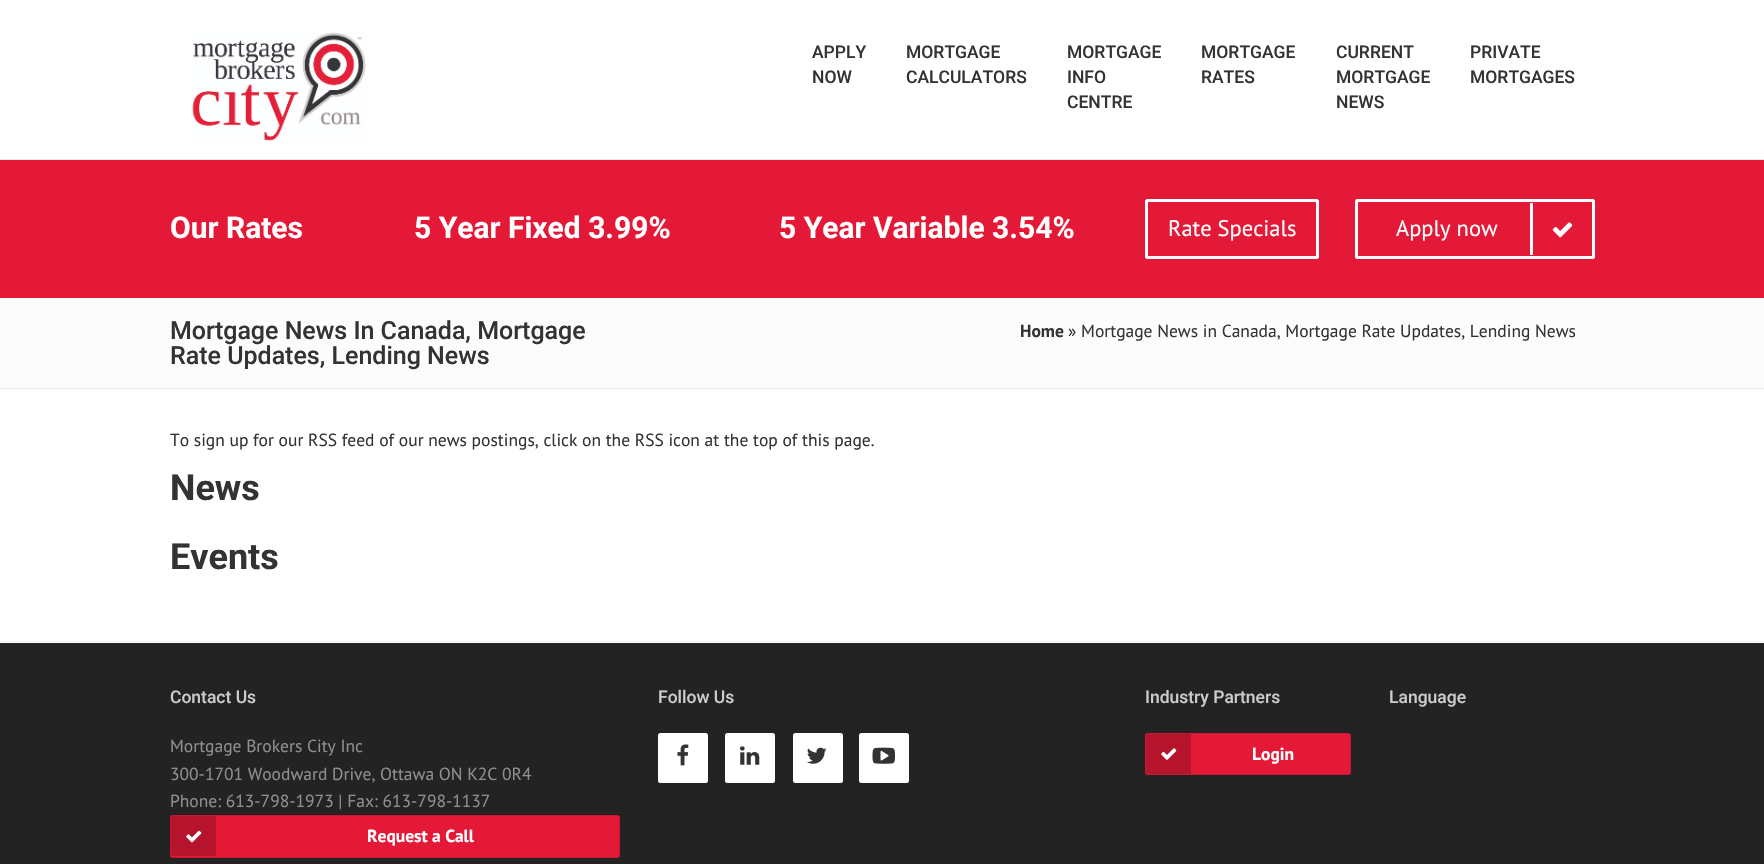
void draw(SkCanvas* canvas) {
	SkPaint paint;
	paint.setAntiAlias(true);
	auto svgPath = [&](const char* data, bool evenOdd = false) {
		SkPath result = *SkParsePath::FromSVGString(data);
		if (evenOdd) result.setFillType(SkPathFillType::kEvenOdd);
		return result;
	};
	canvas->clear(0xffffffff);
	paint.setColor(0xffe0eded);
	canvas->drawRect(SkRect::MakeXYWH(0, 159, 1764, 1), paint);
	canvas->drawImageRect(SkImages::DeferredFromEncodedData(SkData::MakeFromFileName("img1.png")), SkRect::MakeXYWH(192, 32, 174, 109), SkSamplingOptions());
	SkFont f1(fontMgr->matchFamilyStyle("Roboto", SkFontStyle(500, SkFontStyle::kNormal_Width, SkFontStyle::kUpright_Slant)), 17.5);
	f1.setSubpixel(true);
	paint.setColor(0xff333333);
	canvas->drawString("APPLY", 812, 58, f1, paint);
	canvas->drawString("NOW", 812, 83, f1, paint);
	canvas->drawString("MORTGAGE", 906, 58, f1, paint);
	canvas->drawString("CALCULATORS", 906, 83, f1, paint);
	canvas->drawString("MORTGAGE", 1067, 58, f1, paint);
	canvas->drawString("INFO", 1067, 83, f1, paint);
	canvas->drawString("CENTRE", 1067, 108, f1, paint);
	canvas->drawString("MORTGAGE", 1201, 58, f1, paint);
	canvas->drawString("RATES", 1201, 83, f1, paint);
	canvas->drawString("CURRENT", 1336, 58, f1, paint);
	canvas->drawString("MORTGAGE", 1336, 83, f1, paint);
	canvas->drawString("NEWS", 1336, 108, f1, paint);
	canvas->drawString("PRIVATE", 1470, 58, f1, paint);
	canvas->drawString("MORTGAGES", 1470, 83, f1, paint);
	paint.setColor(0xffe31937);
	canvas->drawRect(SkRect::MakeXYWH(0, 160, 1764, 138), paint);
	SkFont f2(fontMgr->matchFamilyStyle("Roboto", SkFontStyle::Bold()), 30);
	f2.setSubpixel(true);
	paint.setColor(0xffffffff);
	canvas->drawString("Our Rates", 170, 238, f2, paint);
	canvas->drawString("5 Year Fixed 3.99%", 414, 238, f2, paint);
	canvas->drawString("5 Year Variable 3.54%", 779, 238, f2, paint);
	paint.setStroke(true);
	paint.setStrokeWidth(3);
	canvas->drawRoundRect(SkRect::MakeXYWH(1146.5, 200.5, 171, 57), 1, 1, paint);
	SkFont f3(fontMgr->matchFamilyStyle("PT Sans", SkFontStyle::Normal()), 22.5);
	f3.setSubpixel(true);
	paint.setStroke(false);
	canvas->drawString("Rate Specials", 1168, 236, f3, paint);
	paint.setStroke(true);
	canvas->drawRoundRect(SkRect::MakeXYWH(1356.5, 200.5, 237, 57), 1, 1, paint);
	paint.setStroke(false);
	canvas->drawString("Apply now", 1396, 236, f3, paint);
	canvas->drawRect(SkRect::MakeXYWH(1530, 203, 3, 52), paint);
	canvas->drawImageRect(SkImages::DeferredFromEncodedData(SkData::MakeFromFileName("img2.png")), SkRect::MakeXYWH(1552, 222, 21, 16), SkSamplingOptions());
	paint.setColor(0xfffcfcfc);
	canvas->drawRect(SkRect::MakeXYWH(0, 298, 1764, 90), paint);
	paint.setColor(0xffe0eded);
	canvas->drawRect(SkRect::MakeXYWH(0, 388, 1764, 1), paint);
	SkFont f4(fontMgr->matchFamilyStyle("Roboto", SkFontStyle(500, SkFontStyle::kNormal_Width, SkFontStyle::kUpright_Slant)), 25);
	f4.setSubpixel(true);
	paint.setColor(0xff333333);
	canvas->drawString("Mortgage News In Canada, Mortgage", 170, 339, f4, paint);
	canvas->drawString("Rate Updates, Lending News", 170, 364, f4, paint);
	SkFont f5(fontMgr->matchFamilyStyle("PT Sans", SkFontStyle::Bold()), 17.5);
	f5.setSubpixel(true);
	canvas->drawString("Home", 1020, 337, f5, paint);
	SkFont f6(fontMgr->matchFamilyStyle("PT Sans", SkFontStyle::Normal()), 17.5);
	f6.setSubpixel(true);
	canvas->drawString("» Mortgage News in Canada, Mortgage Rate Updates, Lending News", 1068, 337, f6, paint);
	paint.setColor(0xffe0eded);
	canvas->drawRect(SkRect::MakeXYWH(0, 641, 1764, 1), paint);
	paint.setColor(0xff333333);
	canvas->drawString("To sign up for our RSS feed of our news postings, click on the RSS icon at the top of this page.", 170, 446, f6, paint);
	SkFont f7(fontMgr->matchFamilyStyle("Roboto", SkFontStyle::Bold()), 36);
	f7.setSubpixel(true);
	canvas->drawString("News", 170, 500, f7, paint);
	canvas->drawString("Events", 170, 569, f7, paint);
	paint.setColor(0xff232323);
	canvas->drawRect(SkRect::MakeXYWH(0, 643, 1764, 221), paint);
	paint.setColor(0xffcccccc);
	canvas->drawString("Contact Us", 170, 703, f1, paint);
	paint.setColor(0xff8f8f8f);
	canvas->drawString("Mortgage Brokers City Inc", 170, 752, f6, paint);
	canvas->drawString("300-1701 Woodward Drive, Ottawa ON K2C 0R4", 170, 780, f6, paint);
	canvas->drawString("Phone: 613-798-1973 | Fax: 613-798-1137", 170, 807, f6, paint);
	paint.setColor(0xffe31937);
	canvas->drawRoundRect(SkRect::MakeXYWH(170.5, 815.5, 449, 42), 2, 2, paint);
	paint.setStroke(true);
	paint.setStrokeWidth(1);
	paint.setColor(0xffcc1631);
	canvas->drawRoundRect(SkRect::MakeXYWH(170.5, 815.5, 449, 42), 2, 2, paint);
	paint.setStroke(false);
	paint.setColor(0xffb5142c);
	canvas->drawPath(svgPath("M173.5 816H216V856H173.5C172 856 171 855 171 853.5V818.5C171 817 172 816 173.5 816Z"), paint);
	canvas->drawImageRect(SkImages::DeferredFromEncodedData(SkData::MakeFromFileName("img3.png")), SkRect::MakeXYWH(186, 830, 16, 13), SkSamplingOptions());
	paint.setColor(0xffffffff);
	canvas->drawString("Request a Call", 367, 842, f5, paint);
	paint.setColor(0xffcccccc);
	canvas->drawString("Follow Us", 658, 703, f1, paint);
	paint.setColor(0xffffffff);
	canvas->drawRoundRect(SkRect::MakeXYWH(658, 733, 50, 50), 2.5, 2.5, paint);
	canvas->drawImageRect(SkImages::DeferredFromEncodedData(SkData::MakeFromFileName("img4.png")), SkRect::MakeXYWH(677, 744, 12, 22), SkSamplingOptions());
	canvas->drawRoundRect(SkRect::MakeXYWH(725, 733, 50, 50), 2.5, 2.5, paint);
	canvas->drawImageRect(SkImages::DeferredFromEncodedData(SkData::MakeFromFileName("img5.png")), SkRect::MakeXYWH(740, 746, 20, 19), SkSamplingOptions());
	canvas->drawRoundRect(SkRect::MakeXYWH(793, 733, 50, 50), 2.5, 2.5, paint);
	canvas->drawImageRect(SkImages::DeferredFromEncodedData(SkData::MakeFromFileName("img6.png")), SkRect::MakeXYWH(807, 747, 20, 17), SkSamplingOptions());
	canvas->drawRoundRect(SkRect::MakeXYWH(859, 733, 50, 50), 2.5, 2.5, paint);
	canvas->drawImageRect(SkImages::DeferredFromEncodedData(SkData::MakeFromFileName("img7.png")), SkRect::MakeXYWH(872, 747, 23, 17), SkSamplingOptions());
	paint.setColor(0xffcccccc);
	canvas->drawString("Industry Partners", 1145, 703, f1, paint);
	paint.setColor(0xffe31937);
	canvas->drawRoundRect(SkRect::MakeXYWH(1145.5, 733.5, 205, 41), 2, 2, paint);
	paint.setStroke(true);
	paint.setColor(0xffcc1631);
	canvas->drawRoundRect(SkRect::MakeXYWH(1145.5, 733.5, 205, 41), 2, 2, paint);
	paint.setStroke(false);
	paint.setColor(0xffb5142c);
	canvas->drawPath(svgPath("M1148.5 734H1191V774H1148.5C1147 774 1146 773 1146 771.5V736.5C1146 735 1147 734 1148.5 734Z"), paint);
	canvas->drawImageRect(SkImages::DeferredFromEncodedData(SkData::MakeFromFileName("img8.png")), SkRect::MakeXYWH(1161, 748, 16, 12), SkSamplingOptions());
	paint.setColor(0xffffffff);
	canvas->drawString("Login", 1252, 760, f5, paint);
	paint.setColor(0xffcccccc);
	canvas->drawString("Language", 1389, 703, f1, paint);
}
